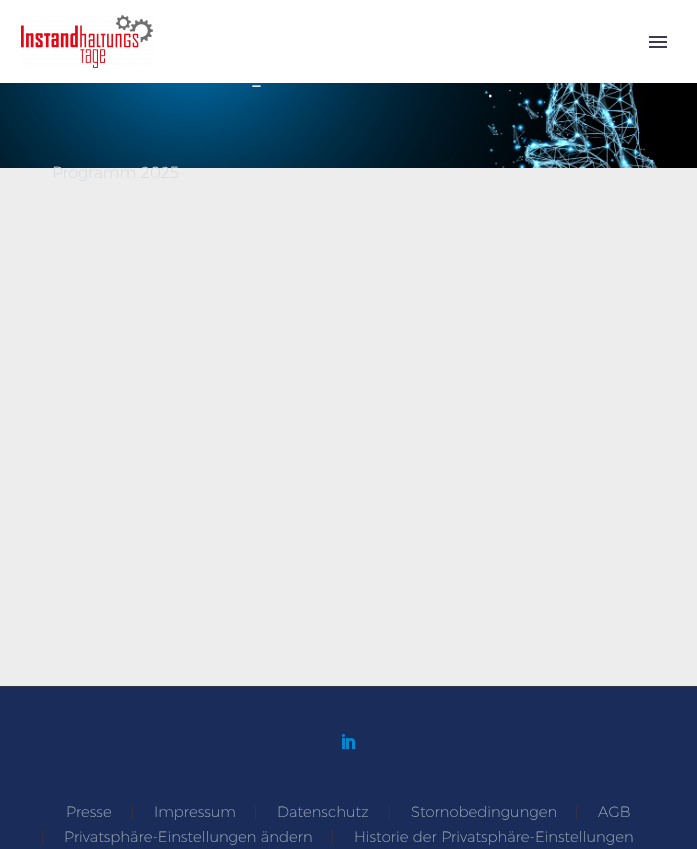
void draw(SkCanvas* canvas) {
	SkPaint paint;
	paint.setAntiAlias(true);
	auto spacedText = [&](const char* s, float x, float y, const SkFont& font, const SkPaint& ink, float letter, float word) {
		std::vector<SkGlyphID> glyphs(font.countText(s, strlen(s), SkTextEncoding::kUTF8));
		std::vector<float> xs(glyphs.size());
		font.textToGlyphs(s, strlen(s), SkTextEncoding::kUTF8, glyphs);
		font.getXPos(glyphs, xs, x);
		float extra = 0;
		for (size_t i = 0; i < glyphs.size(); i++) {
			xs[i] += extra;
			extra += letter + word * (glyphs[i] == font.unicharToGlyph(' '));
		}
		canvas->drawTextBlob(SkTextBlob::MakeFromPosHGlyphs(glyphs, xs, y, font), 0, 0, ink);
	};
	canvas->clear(0xffededed);
	canvas->drawImageRect(SkImages::DeferredFromEncodedData(SkData::MakeFromFileName("img1.png")), SkRect::MakeXYWH(0, 83, 697, 85), SkSamplingOptions());
	SkFont f1(fontMgr->matchFamilyStyle("Montserrat", SkFontStyle(200, SkFontStyle::kNormal_Width, SkFontStyle::kUpright_Slant)), 36);
	f1.setSubpixel(true);
	paint.setColor(0xffffffff);
	spacedText("-", 250, 97, f1, paint, 2, 0);
	spacedText(".", 487, 97, f1, paint, 2, 0);
	canvas->drawRect(SkRect::MakeXYWH(0, 0, 697, 83), paint);
	canvas->drawImageRect(SkImages::DeferredFromEncodedData(SkData::MakeFromFileName("img2.png")), SkRect::MakeXYWH(21, 15, 132, 53), SkSamplingOptions());
	paint.setColor(0xff3c3950);
	canvas->drawRect(SkRect::MakeXYWH(649, 36, 18, 2), paint);
	canvas->drawRect(SkRect::MakeXYWH(649, 41, 18, 2), paint);
	canvas->drawRect(SkRect::MakeXYWH(649, 46, 18, 2), paint);
	SkFont f2(fontMgr->matchFamilyStyle("Montserrat", SkFontStyle(200, SkFontStyle::kNormal_Width, SkFontStyle::kUpright_Slant)), 16);
	f2.setSubpixel(true);
	paint.setColor(0xffd4dadd);
	canvas->drawString("Programm 2025", 52, 178, f2, paint);
	paint.setColor(0xff1a2c5a);
	canvas->drawRect(SkRect::MakeXYWH(0, 687, 697, 162), paint);
	paint.setColor(0xff313646);
	canvas->drawRect(SkRect::MakeXYWH(0, 686, 697, 1), paint);
	canvas->drawImageRect(SkImages::DeferredFromEncodedData(SkData::MakeFromFileName("img3.png")), SkRect::MakeXYWH(342, 734, 14, 15), SkSamplingOptions());
	SkFont f3(fontMgr->matchFamilyStyle("Montserrat", SkFontStyle(200, SkFontStyle::kNormal_Width, SkFontStyle::kUpright_Slant)), 14.9);
	f3.setSubpixel(true);
	paint.setColor(0xff99a9b5);
	canvas->drawString("Presse", 66, 817, f3, paint);
	paint.setColor(0xff333146);
	canvas->drawRect(SkRect::MakeXYWH(132, 805, 1, 15), paint);
	paint.setColor(0xff99a9b5);
	canvas->drawString("Impressum", 154, 817, f3, paint);
	paint.setColor(0xff333146);
	canvas->drawRect(SkRect::MakeXYWH(255, 805, 1, 15), paint);
	paint.setColor(0xff99a9b5);
	canvas->drawString("Datenschutz", 277, 817, f3, paint);
	paint.setColor(0xff333146);
	canvas->drawRect(SkRect::MakeXYWH(389, 805, 1, 15), paint);
	paint.setColor(0xff99a9b5);
	canvas->drawString("Stornobedingungen", 411, 817, f3, paint);
	paint.setColor(0xff333146);
	canvas->drawRect(SkRect::MakeXYWH(576, 805, 1, 15), paint);
	paint.setColor(0xff99a9b5);
	canvas->drawString("AGB", 598, 817, f3, paint);
	paint.setColor(0xff333146);
	canvas->drawRect(SkRect::MakeXYWH(42, 830, 1, 15), paint);
	paint.setColor(0xff99a9b5);
	canvas->drawString("Privatsphäre-Einstellungen ändern", 64, 842, f3, paint);
	paint.setColor(0xff333146);
	canvas->drawRect(SkRect::MakeXYWH(332, 830, 1, 15), paint);
	paint.setColor(0xff99a9b5);
	canvas->drawString("Historie der Privatsphäre-Einstellungen", 354, 842, f3, paint);
}
